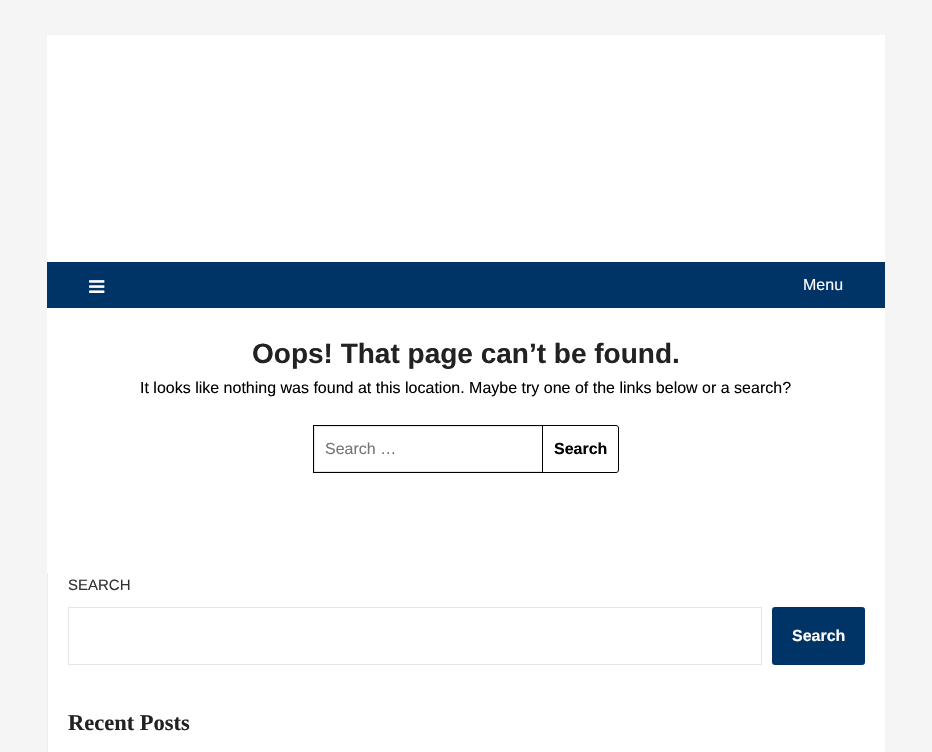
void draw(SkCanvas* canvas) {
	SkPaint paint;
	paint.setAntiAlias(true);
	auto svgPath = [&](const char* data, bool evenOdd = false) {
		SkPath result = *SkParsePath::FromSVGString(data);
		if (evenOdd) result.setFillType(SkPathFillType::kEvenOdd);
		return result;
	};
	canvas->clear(0xfff5f5f5);
	paint.setColor(0xffffffff);
	canvas->drawRect(SkRect::MakeXYWH(47, 35, 838, 227), paint);
	paint.setColor(0xff003366);
	canvas->drawRect(SkRect::MakeXYWH(47, 262, 838, 46), paint);
	canvas->drawImageRect(SkImages::DeferredFromEncodedData(SkData::MakeFromFileName("img1.png")), SkRect::MakeXYWH(89, 280, 16, 13), SkSamplingOptions());
	SkFont f1(fontMgr->matchFamilyStyle("Liberation Sans", SkFontStyle::Normal()), 16);
	f1.setSubpixel(true);
	paint.setColor(0xffffffff);
	canvas->drawString("Menu", 803, 290, f1, paint);
	canvas->drawRect(SkRect::MakeXYWH(47, 308, 838, 444), paint);
	SkFont f2(fontMgr->matchFamilyStyle("Liberation Sans", SkFontStyle::Bold()), 28);
	f2.setSubpixel(true);
	paint.setColor(0xff222222);
	canvas->drawString("Oops! That page can’t be found.", 252, 363, f2, paint);
	paint.setColor(0xff000000);
	canvas->drawString("It looks like nothing was found at this location. Maybe try one of the links below or a search?", 140, 393, f1, paint);
	canvas->drawRect(SkRect::MakeXYWH(313, 425, 230, 1), paint);
	canvas->drawRect(SkRect::MakeXYWH(313, 472, 230, 1), paint);
	canvas->drawRect(SkRect::MakeXYWH(313, 425, 1, 48), paint);
	paint.setStroke(true);
	paint.setStrokeWidth(1);
	paint.setColor(0xffe5e6e9);
	canvas->drawRect(SkRect::MakeXYWH(314.5, 426.5, 228, 45), paint);
	paint.setStroke(false);
	paint.setColor(0xff757575);
	canvas->drawString("Search …", 325, 454, f1, paint);
	paint.setStroke(true);
	paint.setColor(0xff000000);
	canvas->drawPath(svgPath("M542.5 425.5H616C617.5 425.5 618.5 426.5 618.5 428V470C618.5 471.5 617.5 472.5 616 472.5H542.5Z"), paint);
	SkFont f3(fontMgr->matchFamilyStyle("Liberation Sans", SkFontStyle::Bold()), 16);
	f3.setSubpixel(true);
	paint.setStroke(false);
	canvas->drawString("Search", 554, 454, f3, paint);
	paint.setColor(0xffececec);
	canvas->drawRect(SkRect::MakeXYWH(47, 573, 1, 179), paint);
	SkFont f4(fontMgr->matchFamilyStyle("Liberation Sans", SkFontStyle::Normal()), 15);
	f4.setSubpixel(true);
	paint.setColor(0xff333333);
	canvas->drawString("SEARCH", 68, 590, f4, paint);
	paint.setStroke(true);
	paint.setColor(0xffe5e6e9);
	canvas->drawRect(SkRect::MakeXYWH(68.5, 607.5, 693, 57), paint);
	paint.setStroke(false);
	paint.setColor(0xff003366);
	canvas->drawRoundRect(SkRect::MakeXYWH(772, 607, 93, 58), 3, 3, paint);
	paint.setColor(0xffffffff);
	canvas->drawString("Search", 792, 641, f3, paint);
	SkFont f5(fontMgr->matchFamilyStyle("Liberation Serif", SkFontStyle::Bold()), 22.5);
	f5.setSubpixel(true);
	paint.setColor(0xff222222);
	canvas->drawString("Recent Posts", 68, 730, f5, paint);
}
